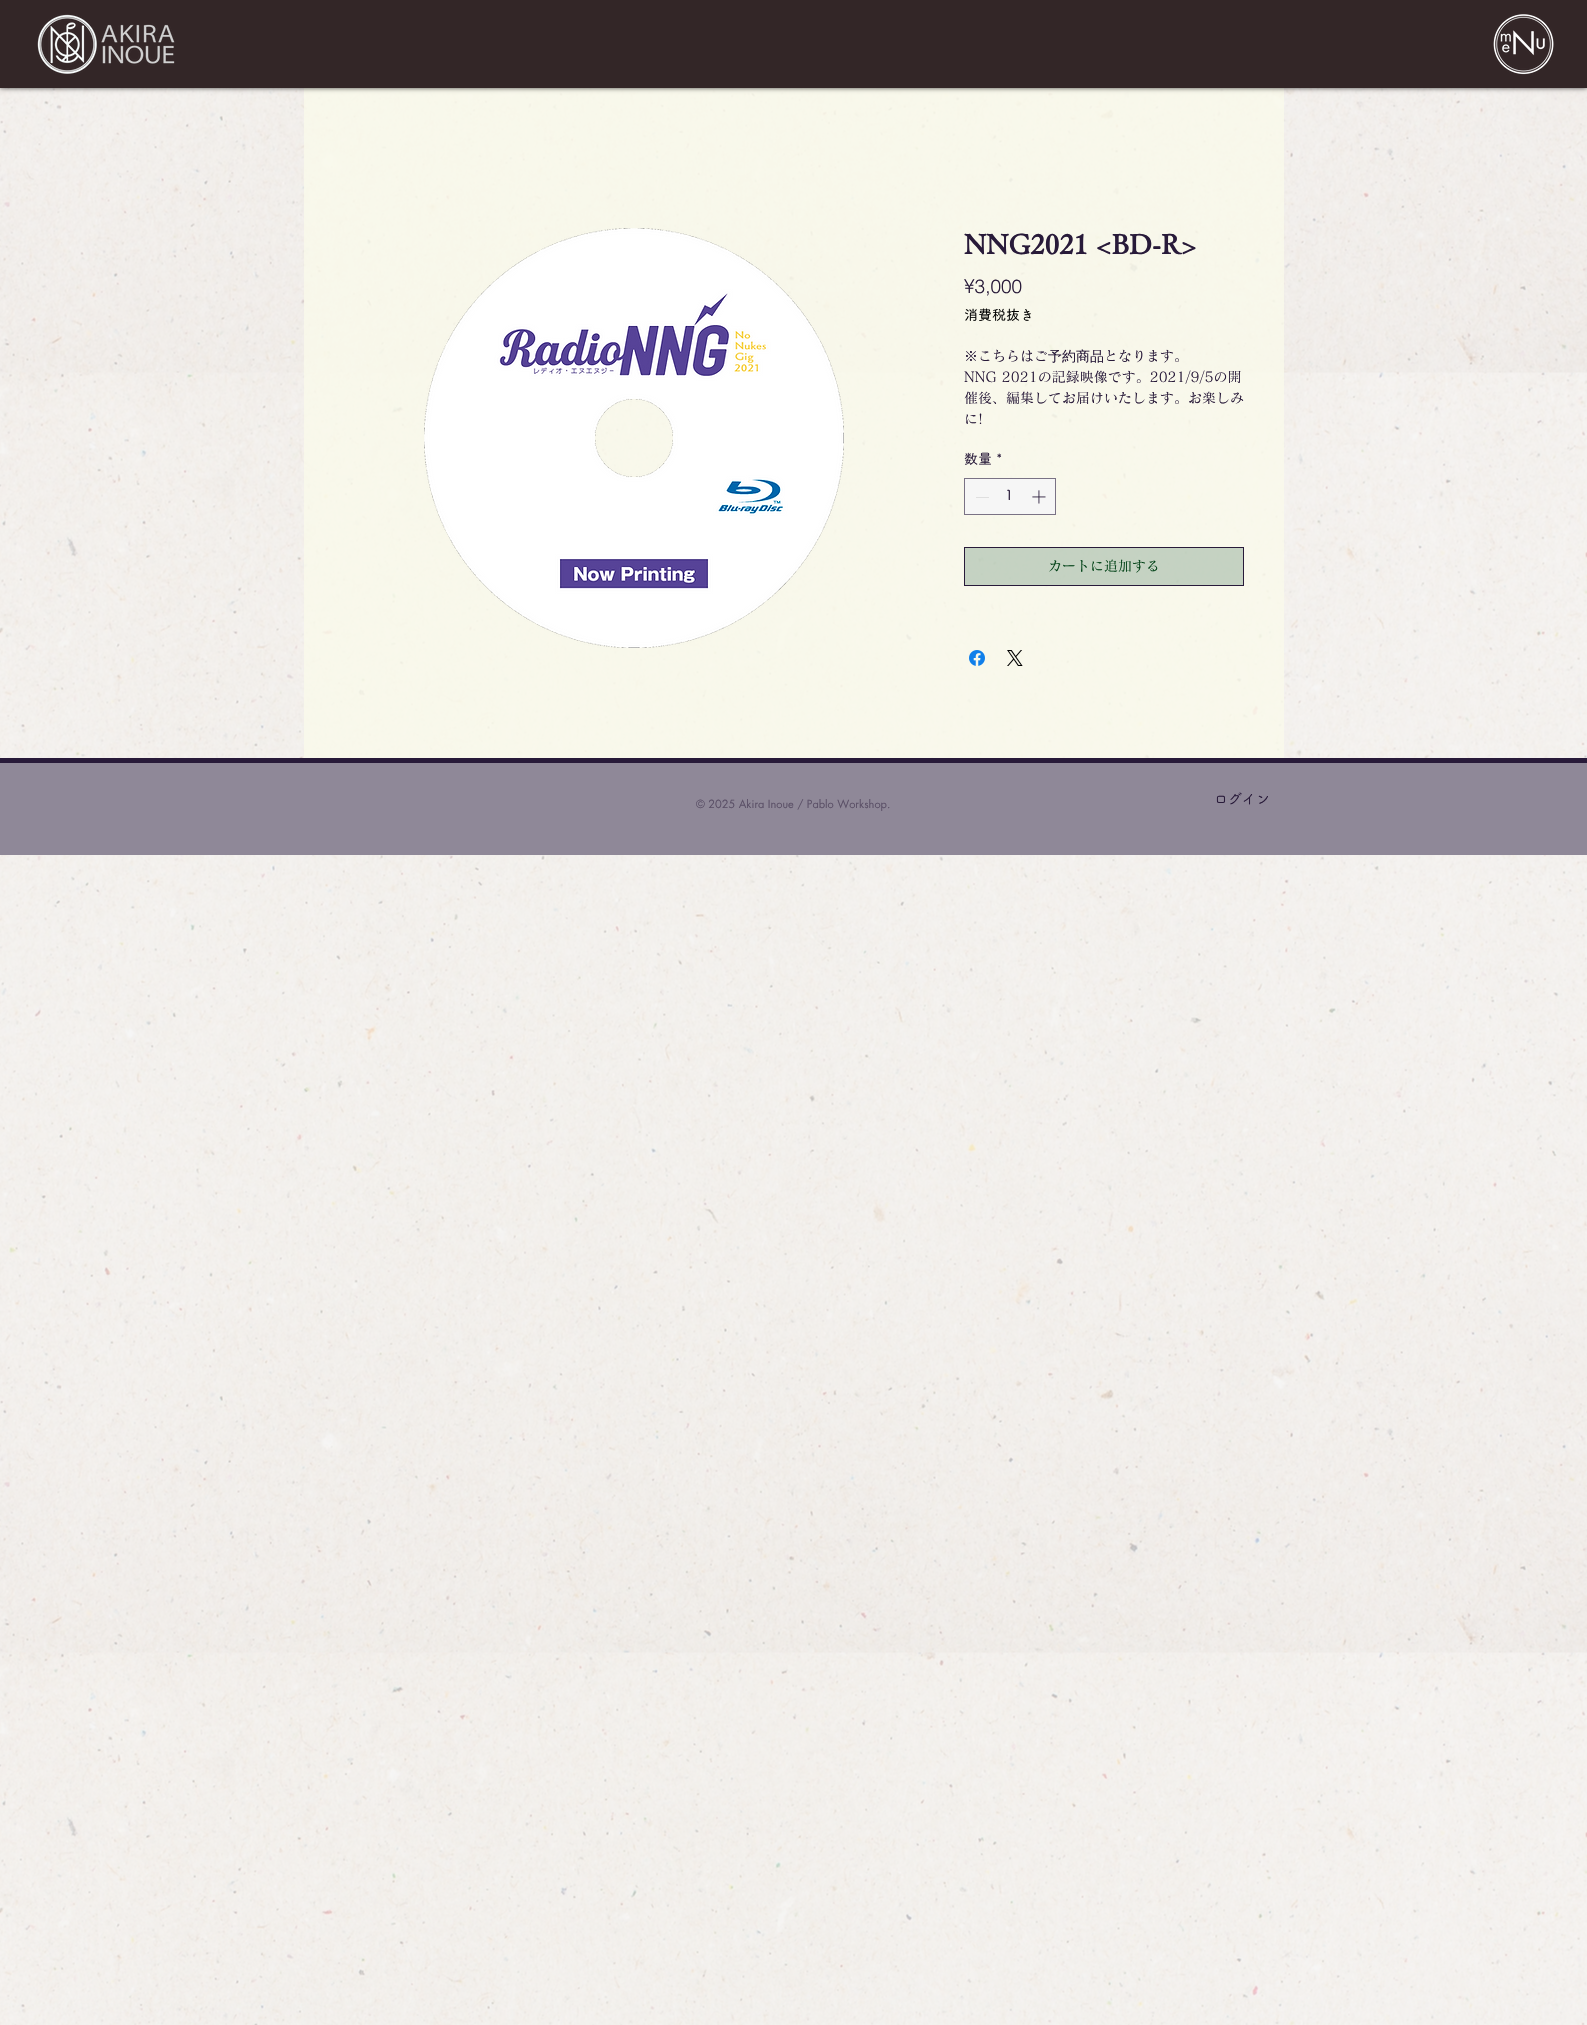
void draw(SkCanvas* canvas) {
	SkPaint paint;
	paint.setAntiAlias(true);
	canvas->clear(0xfff6f6f6);
	canvas->drawImageRect(SkImages::DeferredFromEncodedData(SkData::MakeFromFileName("img1.png")), SkRect::MakeXYWH(0, 88, 1587, 1937), SkSamplingOptions());
	paint.setColor(0xc7fafaeb);
	canvas->drawRect(SkRect::MakeXYWH(304, 88, 980, 670), paint);
	paint.setColor(0xb3000000);
	paint.setMaskFilter(SkMaskFilter::MakeBlur(kNormal_SkBlurStyle, 2.5));
	canvas->drawRect(SkRect::MakeXYWH(0, 0, 1587, 88), paint);
	paint.setMaskFilter(nullptr);
	paint.setColor(0xff332627);
	canvas->drawRect(SkRect::MakeXYWH(0, 0, 1587, 88), paint);
	canvas->drawImageRect(SkImages::DeferredFromEncodedData(SkData::MakeFromFileName("img2.png")), SkRect::MakeXYWH(37, 14, 138, 60), SkSamplingOptions());
	canvas->drawImageRect(SkImages::DeferredFromEncodedData(SkData::MakeFromFileName("img3.png")), SkRect::MakeXYWH(1493, 14, 61, 61), SkSamplingOptions());
	canvas->drawImageRect(SkImages::DeferredFromEncodedData(SkData::MakeFromFileName("img4.png")), SkRect::MakeXYWH(424, 228, 420, 420), SkSamplingOptions());
	SkFont f1(fontMgr->matchFamilyStyle("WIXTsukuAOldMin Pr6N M", SkFontStyle::Bold()), 27);
	f1.setSubpixel(true);
	paint.setColor(0xff281a39);
	canvas->drawString("NNG2021 <BD-R>", 964, 254, f1, paint);
	SkFont f2(fontMgr->matchFamilyStyle("helvetica", SkFontStyle(300, SkFontStyle::kNormal_Width, SkFontStyle::kUpright_Slant)), 19);
	f2.setSubpixel(true);
	canvas->drawString("¥3,000", 964, 293, f2, paint);
	SkFont f3(fontMgr->matchFamilyStyle("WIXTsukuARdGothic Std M", SkFontStyle(500, SkFontStyle::kNormal_Width, SkFontStyle::kUpright_Slant)), 14);
	f3.setSubpixel(true);
	paint.setColor(0xff000000);
	canvas->drawString("消費税抜き", 964, 320, f3, paint);
	SkFont f4(fontMgr->matchFamilyStyle("WenQuanYi Zen Hei", SkFontStyle(500, SkFontStyle::kNormal_Width, SkFontStyle::kUpright_Slant)), 14);
	f4.setSubpixel(true);
	paint.setColor(0xff281a39);
	canvas->drawString("※", 964, 361, f4, paint);
	SkFont f5(fontMgr->matchFamilyStyle("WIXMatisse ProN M", SkFontStyle(500, SkFontStyle::kNormal_Width, SkFontStyle::kUpright_Slant)), 14);
	f5.setSubpixel(true);
	canvas->drawString("こちらはご", 978, 361, f5, paint);
	canvas->drawString("予約商品", 1048, 361, f4, paint);
	canvas->drawString("となります。", 1104, 361, f5, paint);
	canvas->drawString("NNG 2021の記録映像です。2021/9/5の開", 964, 382, f5, paint);
	canvas->drawString("催後、編集してお届けいたします。お楽しみ", 964, 403, f5, paint);
	canvas->drawString("に!", 964, 424, f5, paint);
	canvas->drawString("数量 *", 964, 464, f3, paint);
	paint.setColor(0xfff6f6f6);
	canvas->drawRect(SkRect::MakeXYWH(964.5, 478.5, 91, 36), paint);
	paint.setStroke(true);
	paint.setStrokeWidth(1);
	paint.setColor(0xff7a7285);
	canvas->drawRect(SkRect::MakeXYWH(964.5, 478.5, 91, 36), paint);
	paint.setStroke(false);
	paint.setColor(0xffdfdfdf);
	canvas->drawRect(SkRect::MakeXYWH(976, 497, 13, 1), paint);
	paint.setColor(0xff281a39);
	canvas->drawString("1", 1005, 500, f3, paint);
	canvas->drawImageRect(SkImages::DeferredFromEncodedData(SkData::MakeFromFileName("img5.png")), SkRect::MakeXYWH(1032, 490, 14, 14), SkSamplingOptions());
	paint.setColor(0x7a8baa95);
	canvas->drawRect(SkRect::MakeXYWH(964.5, 547.5, 279, 38), paint);
	paint.setStroke(true);
	paint.setColor(0xff281a39);
	canvas->drawRect(SkRect::MakeXYWH(964.5, 547.5, 279, 38), paint);
	paint.setStroke(false);
	paint.setColor(0xff014216);
	canvas->drawString("カートに追加する", 1048, 571, f5, paint);
	canvas->drawImageRect(SkImages::DeferredFromEncodedData(SkData::MakeFromFileName("img6.png")), SkRect::MakeXYWH(969, 650, 16, 16), SkSamplingOptions());
	canvas->drawImageRect(SkImages::DeferredFromEncodedData(SkData::MakeFromFileName("img7.png")), SkRect::MakeXYWH(1007, 650, 16, 16), SkSamplingOptions());
	paint.setColor(0xff8f8898);
	canvas->drawRect(SkRect::MakeXYWH(0, 763, 1587, 92), paint);
	paint.setColor(0xff281a39);
	canvas->drawRect(SkRect::MakeXYWH(0, 758, 1587, 5), paint);
	SkFont f6(fontMgr->matchFamilyStyle("futura", SkFontStyle::Normal()), 11);
	f6.setSubpixel(true);
	paint.setColor(0xff5c5168);
	canvas->drawString("© 2025 Akira Inoue / Pablo Workshop.", 696, 808, f6, paint);
	paint.setColor(0xff281a39);
	canvas->drawString("ログイン", 1214, 804, f3, paint);
}
